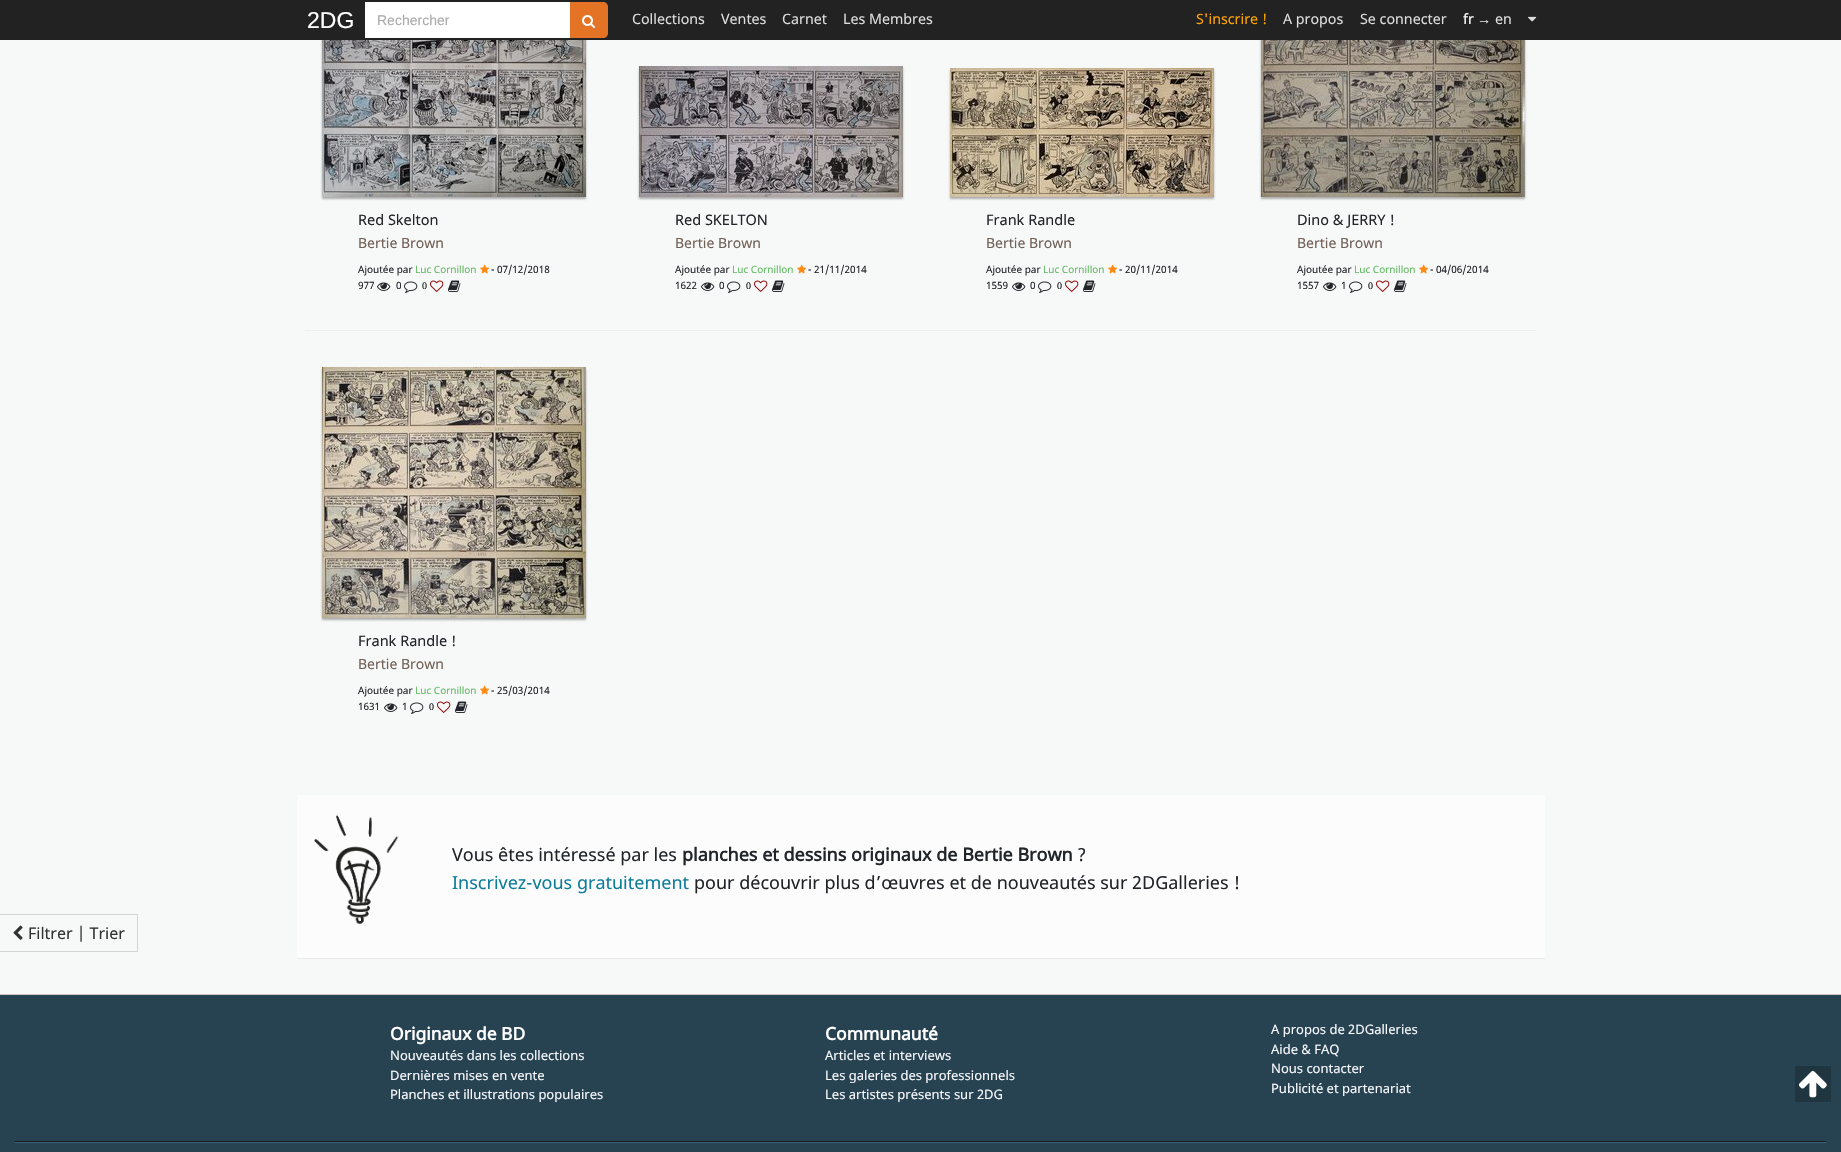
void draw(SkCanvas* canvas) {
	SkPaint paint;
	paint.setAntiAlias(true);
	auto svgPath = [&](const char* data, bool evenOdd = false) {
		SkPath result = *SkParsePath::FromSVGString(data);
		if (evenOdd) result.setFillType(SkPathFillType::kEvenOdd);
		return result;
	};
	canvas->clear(0xfff7f8f8);
	paint.setColor(0x4d000000);
	paint.setMaskFilter(SkMaskFilter::MakeBlur(kNormal_SkBlurStyle, 1));
	canvas->drawRect(SkRect::MakeXYWH(322, -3, 264, 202), paint);
	paint.setMaskFilter(nullptr);
	paint.setMaskFilter(SkMaskFilter::MakeBlur(kNormal_SkBlurStyle, 1));
	canvas->drawRect(SkRect::MakeXYWH(1261, -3, 264, 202), paint);
	paint.setMaskFilter(nullptr);
	paint.setColor(0xff222222);
	canvas->drawRect(SkRect::MakeXYWH(0, 0, 1841, 40), paint);
	SkFont f1(fontMgr->matchFamilyStyle("Liberation Sans", SkFontStyle::Normal()), 23);
	f1.setSubpixel(true);
	paint.setColor(0xffffffff);
	canvas->drawString("2DG", 307, 28, f1, paint);
	canvas->drawRect(SkRect::MakeXYWH(365, 2, 205, 36), paint);
	SkFont f2(fontMgr->matchFamilyStyle("Liberation Sans", SkFontStyle::Normal()), 14);
	f2.setSubpixel(true);
	paint.setColor(0xffaaaaaa);
	canvas->drawString("Rechercher", 377, 25, f2, paint);
	paint.setColor(0xffe47326);
	canvas->drawPath(svgPath("M570 2H603C606 2 608 4 608 7V33C608 36 606 38 603 38H570Z"), paint);
	canvas->drawImageRect(SkImages::DeferredFromEncodedData(SkData::MakeFromFileName("img1.png")), SkRect::MakeXYWH(582, 15, 13, 13), SkSamplingOptions());
	SkFont f3(fontMgr->matchFamilyStyle("Noto Sans", SkFontStyle::Normal()), 14.25);
	f3.setSubpixel(true);
	paint.setColor(0xffdddddd);
	canvas->drawString("Collections", 632, 24, f3, paint);
	canvas->drawString("Ventes", 721, 24, f3, paint);
	canvas->drawString("Carnet", 782, 24, f3, paint);
	canvas->drawString("Les Membres", 843, 24, f3, paint);
	paint.setColor(0xffffa500);
	canvas->drawString("S'inscrire !", 1196, 24, f3, paint);
	paint.setColor(0xffdddddd);
	canvas->drawString("A propos", 1283, 24, f3, paint);
	canvas->drawString("Se connecter", 1360, 24, f3, paint);
	paint.setColor(0xffffffff);
	canvas->drawString("fr", 1463, 24, f3, paint);
	SkFont f4(fontMgr->matchFamilyStyle("Liberation Sans", SkFontStyle::Normal()), 14.25);
	f4.setSubpixel(true);
	paint.setColor(0xffdddddd);
	canvas->drawString("→", 1477, 24, f4, paint);
	canvas->drawString("en", 1495, 24, f3, paint);
	canvas->drawImageRect(SkImages::DeferredFromEncodedData(SkData::MakeFromFileName("img2.png")), SkRect::MakeXYWH(1528, 16, 9, 6), SkSamplingOptions());
	canvas->drawImageRect(SkImages::DeferredFromEncodedData(SkData::MakeFromFileName("img3.png")), SkRect::MakeXYWH(322, 40, 264, 157), SkSamplingOptions());
	SkFont f5(fontMgr->matchFamilyStyle("Noto Sans", SkFontStyle::Normal()), 14.5);
	f5.setSubpixel(true);
	paint.setColor(0xff212529);
	canvas->drawString("Red Skelton", 358, 225, f5, paint);
	SkFont f6(fontMgr->matchFamilyStyle("Noto Sans", SkFontStyle::Normal()), 14);
	f6.setSubpixel(true);
	paint.setColor(0xff706056);
	canvas->drawString("Bertie Brown", 358, 248, f6, paint);
	SkFont f7(fontMgr->matchFamilyStyle("Noto Sans", SkFontStyle::Normal()), 10);
	f7.setSubpixel(true);
	paint.setColor(0xff212529);
	canvas->drawString("Ajoutée par", 358, 273, f7, paint);
	paint.setColor(0xff63bb63);
	canvas->drawString("Luc Cornillon", 415, 273, f7, paint);
	canvas->drawImageRect(SkImages::DeferredFromEncodedData(SkData::MakeFromFileName("img4.png")), SkRect::MakeXYWH(480, 264, 10, 10), SkSamplingOptions());
	paint.setColor(0xff212529);
	canvas->drawString("- 07/12/2018", 491, 273, f7, paint);
	canvas->drawString("977", 358, 289, f7, paint);
	canvas->drawImageRect(SkImages::DeferredFromEncodedData(SkData::MakeFromFileName("img5.png")), SkRect::MakeXYWH(377, 282, 14, 9), SkSamplingOptions());
	canvas->drawString("0", 396, 289, f7, paint);
	canvas->drawImageRect(SkImages::DeferredFromEncodedData(SkData::MakeFromFileName("img6.png")), SkRect::MakeXYWH(404, 281, 14, 12), SkSamplingOptions());
	SkFont f8(fontMgr->matchFamilyStyle("Liberation Serif", SkFontStyle::Normal()), 10);
	f8.setSubpixel(true);
	paint.setColor(0xff111111);
	canvas->drawString("0", 422, 289, f8, paint);
	canvas->drawImageRect(SkImages::DeferredFromEncodedData(SkData::MakeFromFileName("img7.png")), SkRect::MakeXYWH(430, 280, 14, 12), SkSamplingOptions());
	canvas->drawImageRect(SkImages::DeferredFromEncodedData(SkData::MakeFromFileName("img8.png")), SkRect::MakeXYWH(448, 280, 13, 12), SkSamplingOptions());
	paint.setColor(0x4d000000);
	paint.setMaskFilter(SkMaskFilter::MakeBlur(kNormal_SkBlurStyle, 1));
	canvas->drawRect(SkRect::MakeXYWH(639, 68, 264, 131), paint);
	paint.setMaskFilter(nullptr);
	canvas->drawImageRect(SkImages::DeferredFromEncodedData(SkData::MakeFromFileName("img9.png")), SkRect::MakeXYWH(639, 66, 264, 131), SkSamplingOptions());
	paint.setColor(0xff212529);
	canvas->drawString("Red SKELTON", 675, 225, f5, paint);
	paint.setColor(0xff706056);
	canvas->drawString("Bertie Brown", 675, 248, f6, paint);
	paint.setColor(0xff212529);
	canvas->drawString("Ajoutée par", 675, 273, f7, paint);
	paint.setColor(0xff63bb63);
	canvas->drawString("Luc Cornillon", 732, 273, f7, paint);
	canvas->drawImageRect(SkImages::DeferredFromEncodedData(SkData::MakeFromFileName("img4.png")), SkRect::MakeXYWH(797, 264, 10, 10), SkSamplingOptions());
	paint.setColor(0xff212529);
	canvas->drawString("- 21/11/2014", 808, 273, f7, paint);
	canvas->drawString("1 622", 675, 289, f7, paint);
	canvas->drawImageRect(SkImages::DeferredFromEncodedData(SkData::MakeFromFileName("img5.png")), SkRect::MakeXYWH(701, 282, 14, 9), SkSamplingOptions());
	canvas->drawString("0", 719, 289, f7, paint);
	canvas->drawImageRect(SkImages::DeferredFromEncodedData(SkData::MakeFromFileName("img6.png")), SkRect::MakeXYWH(727, 281, 14, 12), SkSamplingOptions());
	paint.setColor(0xff111111);
	canvas->drawString("0", 746, 289, f8, paint);
	canvas->drawImageRect(SkImages::DeferredFromEncodedData(SkData::MakeFromFileName("img7.png")), SkRect::MakeXYWH(754, 280, 14, 12), SkSamplingOptions());
	canvas->drawImageRect(SkImages::DeferredFromEncodedData(SkData::MakeFromFileName("img8.png")), SkRect::MakeXYWH(772, 280, 13, 12), SkSamplingOptions());
	paint.setColor(0x4d000000);
	paint.setMaskFilter(SkMaskFilter::MakeBlur(kNormal_SkBlurStyle, 1));
	canvas->drawRect(SkRect::MakeXYWH(950, 70, 264, 129), paint);
	paint.setMaskFilter(nullptr);
	canvas->drawImageRect(SkImages::DeferredFromEncodedData(SkData::MakeFromFileName("img10.png")), SkRect::MakeXYWH(950, 68, 264, 129), SkSamplingOptions());
	paint.setColor(0xff212529);
	canvas->drawString("Frank Randle", 986, 225, f5, paint);
	paint.setColor(0xff706056);
	canvas->drawString("Bertie Brown", 986, 248, f6, paint);
	paint.setColor(0xff212529);
	canvas->drawString("Ajoutée par", 986, 273, f7, paint);
	paint.setColor(0xff63bb63);
	canvas->drawString("Luc Cornillon", 1043, 273, f7, paint);
	canvas->drawImageRect(SkImages::DeferredFromEncodedData(SkData::MakeFromFileName("img4.png")), SkRect::MakeXYWH(1108, 264, 10, 10), SkSamplingOptions());
	paint.setColor(0xff212529);
	canvas->drawString("- 20/11/2014", 1119, 273, f7, paint);
	canvas->drawString("1 559", 986, 289, f7, paint);
	canvas->drawImageRect(SkImages::DeferredFromEncodedData(SkData::MakeFromFileName("img5.png")), SkRect::MakeXYWH(1012, 282, 14, 9), SkSamplingOptions());
	canvas->drawString("0", 1030, 289, f7, paint);
	canvas->drawImageRect(SkImages::DeferredFromEncodedData(SkData::MakeFromFileName("img6.png")), SkRect::MakeXYWH(1038, 281, 14, 12), SkSamplingOptions());
	paint.setColor(0xff111111);
	canvas->drawString("0", 1057, 289, f8, paint);
	canvas->drawImageRect(SkImages::DeferredFromEncodedData(SkData::MakeFromFileName("img7.png")), SkRect::MakeXYWH(1065, 280, 14, 12), SkSamplingOptions());
	canvas->drawImageRect(SkImages::DeferredFromEncodedData(SkData::MakeFromFileName("img8.png")), SkRect::MakeXYWH(1083, 280, 13, 12), SkSamplingOptions());
	canvas->drawImageRect(SkImages::DeferredFromEncodedData(SkData::MakeFromFileName("img11.png")), SkRect::MakeXYWH(1261, 40, 264, 157), SkSamplingOptions());
	paint.setColor(0xff212529);
	canvas->drawString("Dino & JERRY !", 1297, 225, f5, paint);
	paint.setColor(0xff706056);
	canvas->drawString("Bertie Brown", 1297, 248, f6, paint);
	paint.setColor(0xff212529);
	canvas->drawString("Ajoutée par", 1297, 273, f7, paint);
	paint.setColor(0xff63bb63);
	canvas->drawString("Luc Cornillon", 1354, 273, f7, paint);
	canvas->drawImageRect(SkImages::DeferredFromEncodedData(SkData::MakeFromFileName("img4.png")), SkRect::MakeXYWH(1419, 264, 10, 10), SkSamplingOptions());
	paint.setColor(0xff212529);
	canvas->drawString("- 04/06/2014", 1430, 273, f7, paint);
	canvas->drawString("1 557", 1297, 289, f7, paint);
	canvas->drawImageRect(SkImages::DeferredFromEncodedData(SkData::MakeFromFileName("img5.png")), SkRect::MakeXYWH(1323, 282, 14, 9), SkSamplingOptions());
	canvas->drawString("1", 1341, 289, f7, paint);
	canvas->drawImageRect(SkImages::DeferredFromEncodedData(SkData::MakeFromFileName("img6.png")), SkRect::MakeXYWH(1349, 281, 14, 12), SkSamplingOptions());
	paint.setColor(0xff111111);
	canvas->drawString("0", 1368, 289, f8, paint);
	canvas->drawImageRect(SkImages::DeferredFromEncodedData(SkData::MakeFromFileName("img7.png")), SkRect::MakeXYWH(1376, 280, 14, 12), SkSamplingOptions());
	canvas->drawImageRect(SkImages::DeferredFromEncodedData(SkData::MakeFromFileName("img8.png")), SkRect::MakeXYWH(1394, 280, 13, 12), SkSamplingOptions());
	paint.setColor(0xffeeeeee);
	canvas->drawRect(SkRect::MakeXYWH(305, 330, 1232, 1), paint);
	paint.setColor(0x4d000000);
	paint.setMaskFilter(SkMaskFilter::MakeBlur(kNormal_SkBlurStyle, 1));
	canvas->drawRect(SkRect::MakeXYWH(322, 369, 264, 251), paint);
	paint.setMaskFilter(nullptr);
	canvas->drawImageRect(SkImages::DeferredFromEncodedData(SkData::MakeFromFileName("img12.png")), SkRect::MakeXYWH(322, 367, 264, 251), SkSamplingOptions());
	paint.setColor(0xff212529);
	canvas->drawString("Frank Randle !", 358, 646, f5, paint);
	paint.setColor(0xff706056);
	canvas->drawString("Bertie Brown", 358, 669, f6, paint);
	paint.setColor(0xff212529);
	canvas->drawString("Ajoutée par", 358, 694, f7, paint);
	paint.setColor(0xff63bb63);
	canvas->drawString("Luc Cornillon", 415, 694, f7, paint);
	canvas->drawImageRect(SkImages::DeferredFromEncodedData(SkData::MakeFromFileName("img4.png")), SkRect::MakeXYWH(480, 685, 10, 10), SkSamplingOptions());
	paint.setColor(0xff212529);
	canvas->drawString("- 25/03/2014", 491, 694, f7, paint);
	canvas->drawString("1 631", 358, 710, f7, paint);
	canvas->drawImageRect(SkImages::DeferredFromEncodedData(SkData::MakeFromFileName("img5.png")), SkRect::MakeXYWH(384, 703, 14, 9), SkSamplingOptions());
	canvas->drawString("1", 402, 710, f7, paint);
	canvas->drawImageRect(SkImages::DeferredFromEncodedData(SkData::MakeFromFileName("img6.png")), SkRect::MakeXYWH(410, 702, 14, 12), SkSamplingOptions());
	paint.setColor(0xff111111);
	canvas->drawString("0", 429, 710, f8, paint);
	canvas->drawImageRect(SkImages::DeferredFromEncodedData(SkData::MakeFromFileName("img7.png")), SkRect::MakeXYWH(437, 701, 14, 12), SkSamplingOptions());
	canvas->drawImageRect(SkImages::DeferredFromEncodedData(SkData::MakeFromFileName("img8.png")), SkRect::MakeXYWH(455, 701, 13, 12), SkSamplingOptions());
	paint.setColor(0xfffcfcfd);
	canvas->drawRect(SkRect::MakeXYWH(297, 795, 1248, 163), paint);
	paint.setColor(0xffeaeaea);
	canvas->drawRect(SkRect::MakeXYWH(297, 958, 1248, 1), paint);
	canvas->drawImageRect(SkImages::DeferredFromEncodedData(SkData::MakeFromFileName("img13.png")), SkRect::MakeXYWH(314, 815, 85, 110), SkSamplingOptions());
	SkFont f9(fontMgr->matchFamilyStyle("Noto Sans", SkFontStyle::Normal()), 18);
	f9.setSubpixel(true);
	paint.setColor(0xff212529);
	canvas->drawString("Vous êtes intéressé par les", 452, 861, f9, paint);
	SkFont f10(fontMgr->matchFamilyStyle("Noto Sans", SkFontStyle::Bold()), 18);
	f10.setSubpixel(true);
	canvas->drawString("planches et dessins originaux de Bertie Brown", 682, 861, f10, paint);
	canvas->drawString("?", 1077, 861, f9, paint);
	paint.setColor(0xff0d7d9a);
	canvas->drawString("Inscrivez-vous gratuitement", 452, 889, f9, paint);
	paint.setColor(0xff212529);
	canvas->drawString("pour découvrir plus d’œuvres et de nouveautés sur 2DGalleries !", 694, 889, f9, paint);
	paint.setColor(0xffd5d5d5);
	canvas->drawRect(SkRect::MakeXYWH(0, 914, 138, 1), paint);
	canvas->drawRect(SkRect::MakeXYWH(137, 914, 1, 38), paint);
	canvas->drawRect(SkRect::MakeXYWH(0, 951, 138, 1), paint);
	canvas->drawImageRect(SkImages::DeferredFromEncodedData(SkData::MakeFromFileName("img14.png")), SkRect::MakeXYWH(13, 925, 10, 15), SkSamplingOptions());
	SkFont f11(fontMgr->matchFamilyStyle("Noto Sans", SkFontStyle::Normal()), 16);
	f11.setSubpixel(true);
	paint.setColor(0xff313232);
	canvas->drawString("Filtrer | Trier", 28, 939, f11, paint);
	paint.setColor(0xff274250);
	canvas->drawRect(SkRect::MakeXYWH(0, 995, 1841, 157), paint);
	paint.setColor(0xffcdc4c1);
	canvas->drawRect(SkRect::MakeXYWH(0, 994, 1841, 1), paint);
	SkFont f12(fontMgr->matchFamilyStyle("Noto Sans", SkFontStyle::Bold()), 17.5);
	f12.setSubpixel(true);
	paint.setColor(0xffffffff);
	canvas->drawString("Originaux de BD", 390, 1040, f12, paint);
	SkFont f13(fontMgr->matchFamilyStyle("Noto Sans", SkFontStyle::Normal()), 13);
	f13.setSubpixel(true);
	paint.setColor(0xfff7f9fd);
	canvas->drawString("Nouveautés dans les collections", 390, 1060, f13, paint);
	canvas->drawString("Dernières mises en vente", 390, 1080, f13, paint);
	canvas->drawString("Planches et illustrations populaires", 390, 1099, f13, paint);
	paint.setColor(0xffffffff);
	canvas->drawString("Communauté", 825, 1040, f12, paint);
	paint.setColor(0xfff7f9fd);
	canvas->drawString("Articles et interviews", 825, 1060, f13, paint);
	canvas->drawString("Les galeries des professionnels", 825, 1080, f13, paint);
	canvas->drawString("Les artistes présents sur 2DG", 825, 1099, f13, paint);
	canvas->drawString("A propos de 2DGalleries", 1271, 1034, f13, paint);
	canvas->drawString("Aide & FAQ", 1271, 1054, f13, paint);
	canvas->drawString("Nous contacter", 1271, 1073, f13, paint);
	canvas->drawString("Publicité et partenariat", 1271, 1093, f13, paint);
	paint.setColor(0xff161b1d);
	canvas->drawRect(SkRect::MakeXYWH(15, 1141, 1811, 1), paint);
	paint.setColor(0xff3a6478);
	canvas->drawRect(SkRect::MakeXYWH(15, 1142, 1811, 1), paint);
	paint.setColor(0xff1f3540);
	canvas->drawRect(SkRect::MakeXYWH(1795, 1066, 36, 36), paint);
	canvas->drawImageRect(SkImages::DeferredFromEncodedData(SkData::MakeFromFileName("img15.png")), SkRect::MakeXYWH(1799, 1071, 28, 27), SkSamplingOptions());
}
